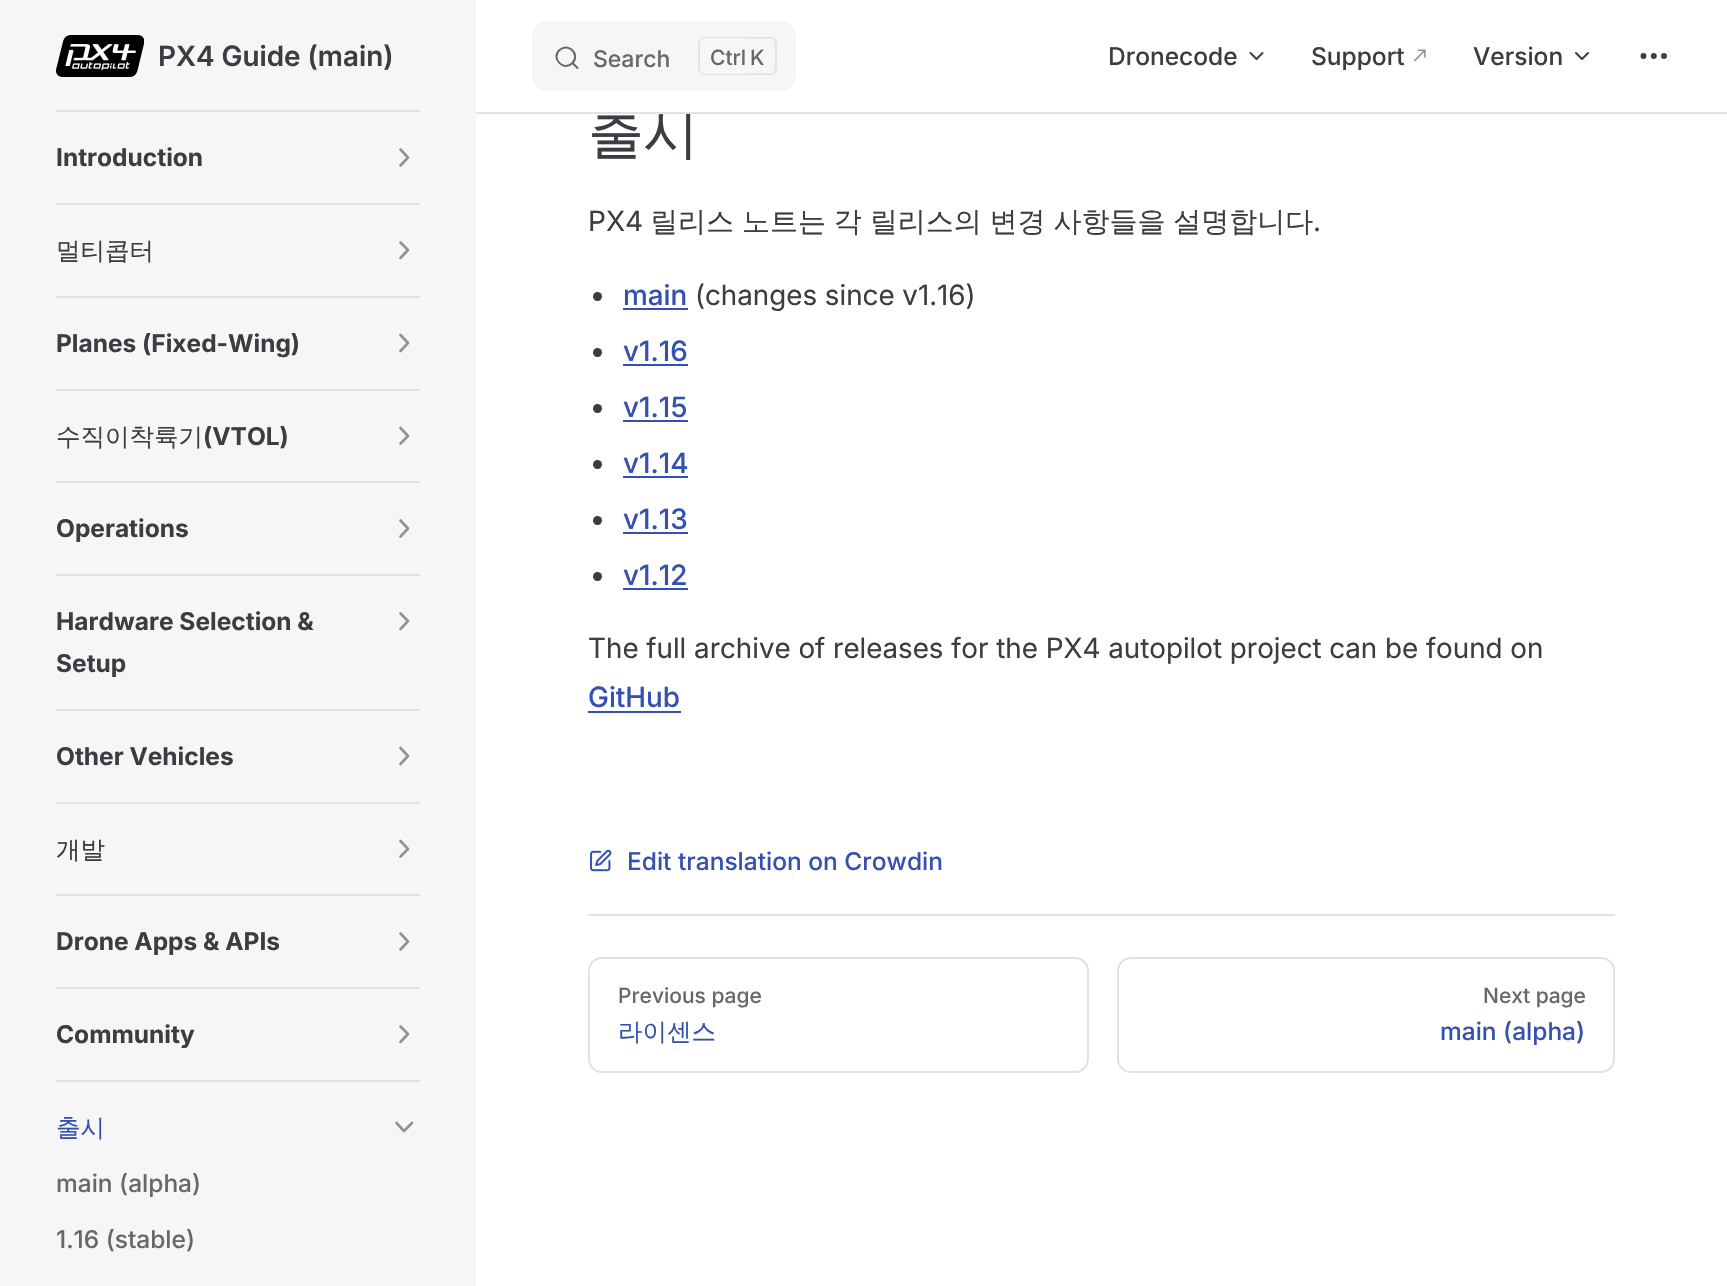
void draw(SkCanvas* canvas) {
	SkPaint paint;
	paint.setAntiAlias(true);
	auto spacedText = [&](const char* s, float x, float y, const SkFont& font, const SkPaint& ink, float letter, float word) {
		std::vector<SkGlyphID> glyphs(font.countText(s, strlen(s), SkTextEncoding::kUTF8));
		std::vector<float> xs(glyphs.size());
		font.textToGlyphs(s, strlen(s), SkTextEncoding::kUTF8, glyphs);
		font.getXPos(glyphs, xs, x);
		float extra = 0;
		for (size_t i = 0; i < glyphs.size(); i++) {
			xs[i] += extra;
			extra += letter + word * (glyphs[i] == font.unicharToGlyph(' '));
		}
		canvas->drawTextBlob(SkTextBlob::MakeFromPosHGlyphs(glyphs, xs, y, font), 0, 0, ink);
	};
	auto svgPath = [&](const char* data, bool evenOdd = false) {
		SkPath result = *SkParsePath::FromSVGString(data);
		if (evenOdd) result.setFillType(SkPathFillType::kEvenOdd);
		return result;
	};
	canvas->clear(0xffffffff);
	paint.setColor(0xfff6f6f7);
	canvas->drawRect(SkRect::MakeXYWH(0, 0, 476, 1286), paint);
	paint.setColor(0xffe2e2e3);
	canvas->drawRect(SkRect::MakeXYWH(56, 110, 364, 2), paint);
	canvas->drawImageRect(SkImages::DeferredFromEncodedData(SkData::MakeFromFileName("img1.png")), SkRect::MakeXYWH(56, 35, 88, 42), SkSamplingOptions());
	SkFont f1(fontMgr->matchFamilyStyle("Inter", SkFontStyle(600, SkFontStyle::kNormal_Width, SkFontStyle::kUpright_Slant)), 28);
	f1.setSubpixel(true);
	paint.setColor(0xff3c3c43);
	canvas->drawString("PX4 Guide (main)", 158, 66, f1, paint);
	SkFont f2(fontMgr->matchFamilyStyle("WenQuanYi Zen Hei", SkFontStyle(500, SkFontStyle::kNormal_Width, SkFontStyle::kUpright_Slant)), 56);
	f2.setSubpixel(true);
	spacedText("출시", 588, 152, f2, paint, -1, 0);
	paint.setColor(0xffffffff);
	canvas->drawRect(SkRect::MakeXYWH(606, 108, 85, 4), paint);
	paint.setColor(0xfff6f6f7);
	canvas->drawRoundRect(SkRect::MakeXYWH(532, 21, 264, 70), 14, 14, paint);
	paint.setStroke(true);
	paint.setStrokeWidth(2);
	paint.setStrokeCap(SkPaint::kRound_Cap);
	paint.setStrokeJoin(SkPaint::kRound_Join);
	paint.setColor(0xff67676c);
	canvas->drawPath(svgPath("M572.5 63L577.5 68L572.5 63C563.5 72 550.5 58 559.5 50C568.5 42 580.5 54.5 572.5 63Z"), paint);
	SkFont f3(fontMgr->matchFamilyStyle("Inter", SkFontStyle(500, SkFontStyle::kNormal_Width, SkFontStyle::kUpright_Slant)), 23);
	f3.setSubpixel(true);
	paint.setStroke(false);
	canvas->drawString("Search", 593, 67, f3, paint);
	paint.setColor(0xffe2e2e3);
	canvas->drawPath(svgPath("M705 37H746V75H705C701 75 698 72 698 68V44C698 40 701 37 705 37ZM705 38H746V74H705C702 74 700 71 700 68V44C700 41 702 38 705 38Z", true), paint);
	SkFont f4(fontMgr->matchFamilyStyle("Inter", SkFontStyle(500, SkFontStyle::kNormal_Width, SkFontStyle::kUpright_Slant)), 21);
	f4.setSubpixel(true);
	paint.setColor(0xff67676c);
	canvas->drawString("Ctrl", 710, 65, f4, paint);
	paint.setColor(0xffe2e2e3);
	canvas->drawPath(svgPath("M745.5 37H770C774 37 777 40 777 44V68C777 72 774 75 770 75H745.5ZM745.5 38.5H770C773 38.5 775 41 775 44V68C775 71 773 73.5 770 73.5H745.5Z", true), paint);
	paint.setColor(0xff67676c);
	canvas->drawString("K", 750, 65, f4, paint);
	SkFont f5(fontMgr->matchFamilyStyle("Inter", SkFontStyle(500, SkFontStyle::kNormal_Width, SkFontStyle::kUpright_Slant)), 24.5);
	f5.setSubpixel(true);
	paint.setColor(0xff3c3c43);
	canvas->drawString("Dronecode", 1108, 65, f5, paint);
	paint.setStroke(true);
	canvas->drawPath(svgPath("M1250.5 53L1256.5 59L1262.5 53"), paint);
	paint.setStroke(false);
	canvas->drawString("Support", 1311, 65, f5, paint);
	canvas->drawImageRect(SkImages::DeferredFromEncodedData(SkData::MakeFromFileName("img2.png")), SkRect::MakeXYWH(1413, 49, 13, 13), SkSamplingOptions());
	canvas->drawString("Version", 1473, 65, f5, paint);
	paint.setStroke(true);
	canvas->drawPath(svgPath("M1576 53L1582 59L1588 53"), paint);
	paint.setStrokeWidth(2.9);
	paint.setStrokeCap(SkPaint::kButt_Cap);
	paint.setStrokeJoin(SkPaint::kMiter_Join);
	canvas->drawCircle(1653.8, 56, 1.5, paint);
	canvas->drawCircle(1664, 56, 1.5, paint);
	canvas->drawCircle(1643.5, 56, 1.5, paint);
	paint.setStroke(false);
	paint.setColor(0xffe2e2e3);
	canvas->drawRect(SkRect::MakeXYWH(476, 112, 1251, 2), paint);
	SkFont f6(fontMgr->matchFamilyStyle("Inter", SkFontStyle::Bold()), 24.5);
	f6.setSubpixel(true);
	paint.setColor(0xff3c3c43);
	canvas->drawString("Introduction", 56, 166, f6, paint);
	paint.setStroke(true);
	paint.setStrokeWidth(2.6);
	paint.setStrokeCap(SkPaint::kRound_Cap);
	paint.setStrokeJoin(SkPaint::kRound_Join);
	paint.setColor(0xff929295);
	canvas->drawPath(svgPath("M400.5 165.5L408 157.5L400.5 149.5"), paint);
	paint.setStroke(false);
	paint.setColor(0xffe2e2e3);
	canvas->drawRect(SkRect::MakeXYWH(56, 203, 364, 2), paint);
	SkFont f7(fontMgr->matchFamilyStyle("WenQuanYi Zen Hei", SkFontStyle(500, SkFontStyle::kNormal_Width, SkFontStyle::kUpright_Slant)), 24.5);
	f7.setSubpixel(true);
	paint.setColor(0xff3c3c43);
	canvas->drawString("멀티콥터", 56, 259, f7, paint);
	paint.setStroke(true);
	paint.setColor(0xff929295);
	canvas->drawPath(svgPath("M400.5 258L408 250L400.5 242.5"), paint);
	paint.setStroke(false);
	paint.setColor(0xffe2e2e3);
	canvas->drawRect(SkRect::MakeXYWH(56, 296, 364, 2), paint);
	paint.setColor(0xff3c3c43);
	canvas->drawString("Planes (Fixed-Wing)", 56, 352, f6, paint);
	paint.setStroke(true);
	paint.setColor(0xff929295);
	canvas->drawPath(svgPath("M400.5 351L408 343L400.5 335"), paint);
	paint.setStroke(false);
	paint.setColor(0xffe2e2e3);
	canvas->drawRect(SkRect::MakeXYWH(56, 389, 364, 2), paint);
	paint.setColor(0xff3c3c43);
	canvas->drawString("수직이착륙기", 56, 445, f7, paint);
	canvas->drawString("(VTOL)", 203, 445, f6, paint);
	paint.setStroke(true);
	paint.setColor(0xff929295);
	canvas->drawPath(svgPath("M400.5 443.5L408 436L400.5 428"), paint);
	paint.setStroke(false);
	paint.setColor(0xffe2e2e3);
	canvas->drawRect(SkRect::MakeXYWH(56, 481, 364, 2), paint);
	paint.setColor(0xff3c3c43);
	canvas->drawString("Operations", 56, 537, f6, paint);
	paint.setStroke(true);
	paint.setColor(0xff929295);
	canvas->drawPath(svgPath("M400.5 536.5L408 528.5L400.5 520.5"), paint);
	paint.setStroke(false);
	paint.setColor(0xffe2e2e3);
	canvas->drawRect(SkRect::MakeXYWH(56, 574, 364, 2), paint);
	paint.setColor(0xff3c3c43);
	canvas->drawString("Hardware Selection &", 56, 630, f6, paint);
	canvas->drawString("Setup", 56, 672, f6, paint);
	paint.setStroke(true);
	paint.setColor(0xff929295);
	canvas->drawPath(svgPath("M400.5 629L408 621L400.5 613.5"), paint);
	paint.setStroke(false);
	paint.setColor(0xffe2e2e3);
	canvas->drawRect(SkRect::MakeXYWH(56, 709, 364, 2), paint);
	paint.setColor(0xff3c3c43);
	canvas->drawString("Other Vehicles", 56, 765, f6, paint);
	paint.setStroke(true);
	paint.setColor(0xff929295);
	canvas->drawPath(svgPath("M400.5 764L408 756L400.5 748"), paint);
	paint.setStroke(false);
	paint.setColor(0xffe2e2e3);
	canvas->drawRect(SkRect::MakeXYWH(56, 802, 364, 2), paint);
	paint.setColor(0xff3c3c43);
	canvas->drawString("개발", 56, 858, f7, paint);
	paint.setStroke(true);
	paint.setColor(0xff929295);
	canvas->drawPath(svgPath("M400.5 856.5L408 849L400.5 841"), paint);
	paint.setStroke(false);
	paint.setColor(0xffe2e2e3);
	canvas->drawRect(SkRect::MakeXYWH(56, 894, 364, 2), paint);
	paint.setColor(0xff3c3c43);
	canvas->drawString("Drone Apps & APIs", 56, 950, f6, paint);
	paint.setStroke(true);
	paint.setColor(0xff929295);
	canvas->drawPath(svgPath("M400.5 949.5L408 941.5L400.5 933.5"), paint);
	paint.setStroke(false);
	paint.setColor(0xffe2e2e3);
	canvas->drawRect(SkRect::MakeXYWH(56, 987, 364, 2), paint);
	paint.setColor(0xff3c3c43);
	canvas->drawString("Community", 56, 1043, f6, paint);
	paint.setStroke(true);
	paint.setColor(0xff929295);
	canvas->drawPath(svgPath("M400.5 1042L408 1034L400.5 1026.5"), paint);
	paint.setStroke(false);
	paint.setColor(0xffe2e2e3);
	canvas->drawRect(SkRect::MakeXYWH(56, 1080, 364, 2), paint);
	paint.setColor(0xff3451b2);
	canvas->drawString("출시", 56, 1136, f7, paint);
	paint.setStroke(true);
	paint.setColor(0xff929295);
	canvas->drawPath(svgPath("M396.5 1123L404 1131L412 1123"), paint);
	paint.setStroke(false);
	paint.setColor(0xff67676c);
	canvas->drawString("main (alpha)", 56, 1192, f5, paint);
	canvas->drawString("1.16 (stable)", 56, 1248, f5, paint);
	SkFont f8(fontMgr->matchFamilyStyle("Inter", SkFontStyle::Normal()), 28);
	f8.setSubpixel(true);
	paint.setColor(0xff3c3c43);
	canvas->drawString("PX4", 588, 231, f8, paint);
	SkFont f9(fontMgr->matchFamilyStyle("WenQuanYi Zen Hei", SkFontStyle(500, SkFontStyle::kNormal_Width, SkFontStyle::kUpright_Slant)), 28);
	f9.setSubpixel(true);
	spacedText("릴리스 노트는 각 릴리스의 변경 사항들을 설명합니다", 650, 231, f9, paint, 0, -0.5);
	canvas->drawString(".", 1313, 231, f8, paint);
	canvas->drawCircle(597.5, 296.5, 4.5, paint);
	SkFont f10(fontMgr->matchFamilyStyle("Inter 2", SkFontStyle(500, SkFontStyle::kNormal_Width, SkFontStyle::kUpright_Slant)), 28);
	f10.setSubpixel(true);
	paint.setColor(0xff3451b2);
	canvas->drawString("main", 623, 305, f10, paint);
	canvas->drawRect(SkRect::MakeXYWH(623, 308, 65, 2), paint);
	SkFont f11(fontMgr->matchFamilyStyle("Inter 2", SkFontStyle::Normal()), 28);
	f11.setSubpixel(true);
	paint.setColor(0xff3c3c43);
	canvas->drawString("(changes since v1.16)", 695, 305, f11, paint);
	canvas->drawCircle(597.5, 352.5, 4.5, paint);
	paint.setColor(0xff3451b2);
	canvas->drawString("v1.16", 623, 361, f10, paint);
	canvas->drawRect(SkRect::MakeXYWH(623, 364, 65, 2), paint);
	paint.setColor(0xff3c3c43);
	canvas->drawCircle(597.5, 408.5, 4.5, paint);
	paint.setColor(0xff3451b2);
	canvas->drawString("v1.15", 623, 417, f10, paint);
	canvas->drawRect(SkRect::MakeXYWH(623, 420, 65, 2), paint);
	paint.setColor(0xff3c3c43);
	canvas->drawCircle(597.5, 464.5, 4.5, paint);
	paint.setColor(0xff3451b2);
	canvas->drawString("v1.14", 623, 473, f10, paint);
	canvas->drawRect(SkRect::MakeXYWH(623, 476, 65, 2), paint);
	paint.setColor(0xff3c3c43);
	canvas->drawCircle(597.5, 520.5, 4.5, paint);
	paint.setColor(0xff3451b2);
	canvas->drawString("v1.13", 623, 529, f10, paint);
	canvas->drawRect(SkRect::MakeXYWH(623, 532, 65, 2), paint);
	paint.setColor(0xff3c3c43);
	canvas->drawCircle(597.5, 576.5, 4.5, paint);
	paint.setColor(0xff3451b2);
	canvas->drawString("v1.12", 623, 585, f10, paint);
	canvas->drawRect(SkRect::MakeXYWH(623, 588, 65, 2), paint);
	paint.setColor(0xff3c3c43);
	canvas->drawString("The full archive of releases for the PX4 autopilot project can be found on", 588, 658, f11, paint);
	paint.setColor(0xff3451b2);
	canvas->drawString("GitHub", 588, 707, f10, paint);
	canvas->drawRect(SkRect::MakeXYWH(588, 711, 93, 2), paint);
	canvas->drawImageRect(SkImages::DeferredFromEncodedData(SkData::MakeFromFileName("img3.png")), SkRect::MakeXYWH(590, 849, 22, 23), SkSamplingOptions());
	canvas->drawString("Edit translation on Crowdin", 627, 870, f5, paint);
	paint.setColor(0xffe2e2e3);
	canvas->drawRect(SkRect::MakeXYWH(588, 914, 1027, 2), paint);
	paint.setStroke(true);
	paint.setStrokeWidth(2);
	paint.setStrokeCap(SkPaint::kButt_Cap);
	paint.setStrokeJoin(SkPaint::kMiter_Join);
	canvas->drawRoundRect(SkRect::MakeXYWH(589, 958, 499, 114), 13, 13, paint);
	paint.setStroke(false);
	paint.setColor(0xff67676c);
	canvas->drawString("Previous page", 618, 1003, f4, paint);
	paint.setColor(0xff3451b2);
	canvas->drawString("라이센스", 618, 1040, f7, paint);
	paint.setStroke(true);
	paint.setColor(0xffe2e2e3);
	canvas->drawRoundRect(SkRect::MakeXYWH(1118, 958, 496, 114), 13, 13, paint);
	paint.setStroke(false);
	paint.setColor(0xff67676c);
	canvas->drawString("Next page", 1483, 1003, f4, paint);
	paint.setColor(0xff3451b2);
	canvas->drawString("main (alpha)", 1440, 1040, f5, paint);
}
